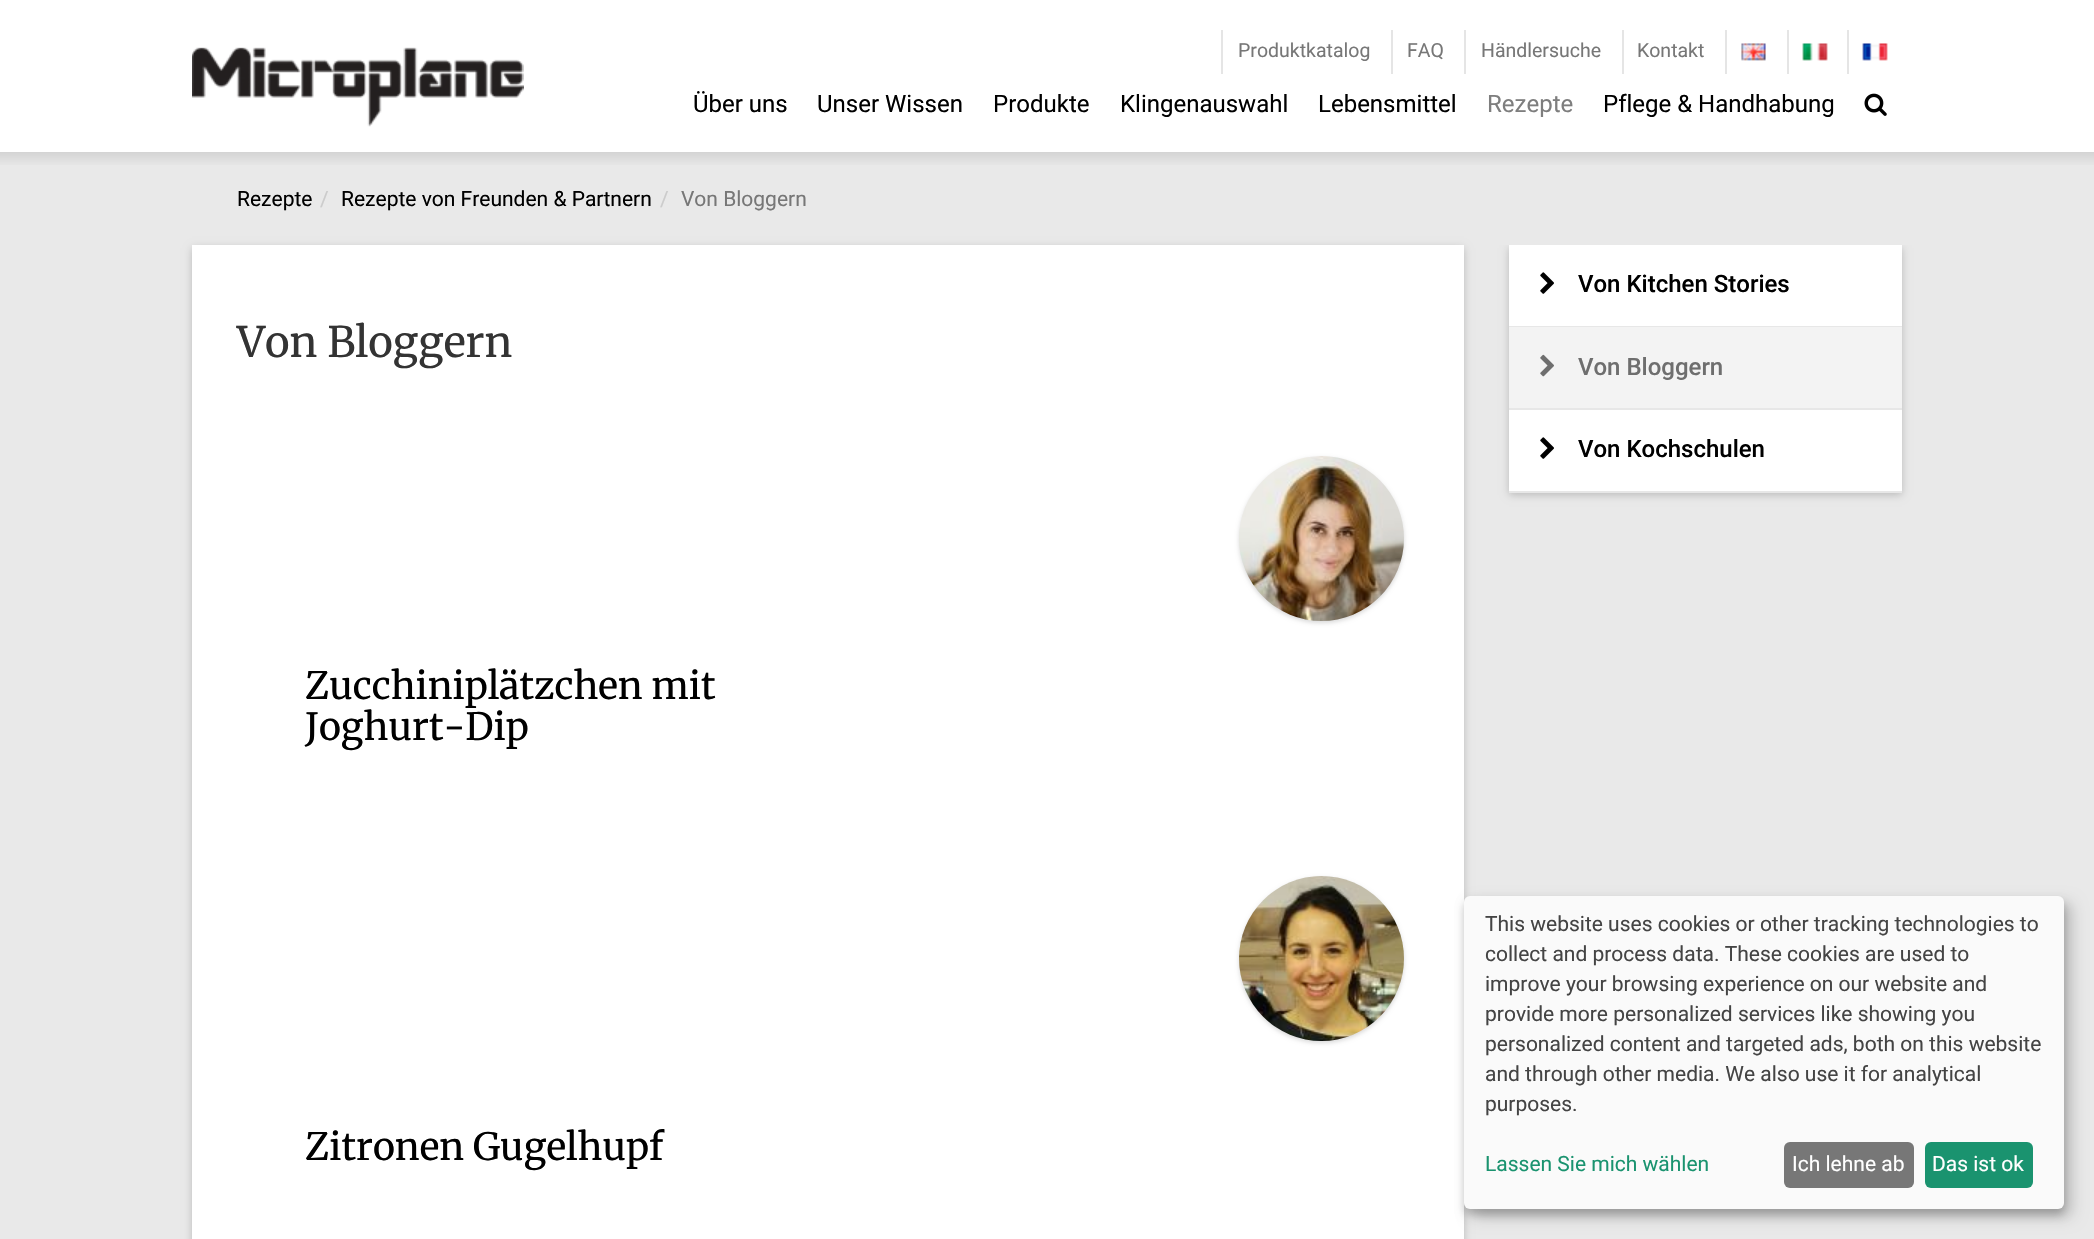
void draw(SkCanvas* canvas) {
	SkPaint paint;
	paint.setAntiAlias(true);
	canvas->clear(0xffe9e9e9);
	paint.setColor(0xffffffff);
	canvas->drawRect(SkRect::MakeXYWH(0, 0, 2094, 152), paint);
	canvas->drawImageRect(SkImages::DeferredFromEncodedData(SkData::MakeFromFileName("img1.png")), SkRect::MakeXYWH(192, 47, 332, 80), SkSamplingOptions());
	paint.setColor(0xffe5e5e5);
	canvas->drawRect(SkRect::MakeXYWH(1221, 30, 2, 44), paint);
	SkFont f1(fontMgr->matchFamilyStyle("Roboto", SkFontStyle::Normal()), 19.5);
	f1.setSubpixel(true);
	paint.setColor(0xff777777);
	canvas->drawString("Produktkatalog", 1238, 57, f1, paint);
	paint.setColor(0xffe5e5e5);
	canvas->drawRect(SkRect::MakeXYWH(1391, 30, 2, 44), paint);
	paint.setColor(0xff777777);
	canvas->drawString("FAQ", 1407, 57, f1, paint);
	paint.setColor(0xffe5e5e5);
	canvas->drawRect(SkRect::MakeXYWH(1464, 30, 2, 44), paint);
	paint.setColor(0xff777777);
	canvas->drawString("Händlersuche", 1481, 57, f1, paint);
	paint.setColor(0xffe5e5e5);
	canvas->drawRect(SkRect::MakeXYWH(1622, 30, 2, 44), paint);
	paint.setColor(0xff777777);
	canvas->drawString("Kontakt", 1637, 57, f1, paint);
	paint.setColor(0xffe5e5e5);
	canvas->drawRect(SkRect::MakeXYWH(1725, 30, 2, 44), paint);
	canvas->drawImageRect(SkImages::DeferredFromEncodedData(SkData::MakeFromFileName("img2.png")), SkRect::MakeXYWH(1741, 43, 25, 18), SkSamplingOptions());
	canvas->drawRect(SkRect::MakeXYWH(1787, 30, 2, 44), paint);
	canvas->drawImageRect(SkImages::DeferredFromEncodedData(SkData::MakeFromFileName("img3.png")), SkRect::MakeXYWH(1802, 43, 26, 18), SkSamplingOptions());
	canvas->drawRect(SkRect::MakeXYWH(1847, 30, 2, 44), paint);
	canvas->drawImageRect(SkImages::DeferredFromEncodedData(SkData::MakeFromFileName("img4.png")), SkRect::MakeXYWH(1862, 43, 26, 18), SkSamplingOptions());
	SkFont f2(fontMgr->matchFamilyStyle("Roboto", SkFontStyle::Normal()), 24);
	f2.setSubpixel(true);
	paint.setColor(0xff000000);
	canvas->drawString("Über uns", 693, 112, f2, paint);
	canvas->drawString("Unser Wissen", 817, 112, f2, paint);
	canvas->drawString("Produkte", 993, 112, f2, paint);
	canvas->drawString("Klingenauswahl", 1120, 112, f2, paint);
	canvas->drawString("Lebensmittel", 1318, 112, f2, paint);
	paint.setColor(0xff7e7e7e);
	canvas->drawString("Rezepte", 1487, 112, f2, paint);
	paint.setColor(0xff000000);
	canvas->drawString("Pflege & Handhabung", 1603, 112, f2, paint);
	canvas->drawImageRect(SkImages::DeferredFromEncodedData(SkData::MakeFromFileName("img5.png")), SkRect::MakeXYWH(1864, 93, 23, 23), SkSamplingOptions());
	{
		const SkColor colors[] = {0xffd2d2d2, 0xffe9e9e9};
		const float stops[] = {0, 1};
		const SkPoint ends[] = {{1047, 151}, {1047, 167}};
		paint.setShader(SkGradientShader::MakeLinear(ends, colors, stops, 2, SkTileMode::kClamp));
		paint.setAlpha(255);
	}
	canvas->drawRect(SkRect::MakeXYWH(0, 152, 2094, 13), paint);
	SkFont f3(fontMgr->matchFamilyStyle("Roboto", SkFontStyle::Normal()), 21);
	f3.setSubpixel(true);
	paint.setShader(nullptr);
	paint.setColor(0xff000000);
	canvas->drawString("Rezepte", 237, 206, f3, paint);
	paint.setColor(0xffcccccc);
	canvas->drawString("/", 320, 206, f3, paint);
	paint.setColor(0xff000000);
	canvas->drawString("Rezepte von Freunden & Partnern", 341, 206, f3, paint);
	paint.setColor(0xffcccccc);
	canvas->drawString("/", 660, 206, f3, paint);
	paint.setColor(0xff777777);
	canvas->drawString("Von Bloggern", 681, 206, f3, paint);
	paint.setColor(0x33000000);
	paint.setMaskFilter(SkMaskFilter::MakeBlur(kNormal_SkBlurStyle, 4));
	canvas->drawRect(SkRect::MakeXYWH(192, 248, 1272, 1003), paint);
	paint.setMaskFilter(nullptr);
	paint.setColor(0xffffffff);
	canvas->drawRect(SkRect::MakeXYWH(192, 245, 1272, 994), paint);
	SkFont f4(fontMgr->matchFamilyStyle("Merriweather", SkFontStyle(300, SkFontStyle::kNormal_Width, SkFontStyle::kUpright_Slant)), 42);
	f4.setSubpixel(true);
	paint.setColor(0xff333333);
	canvas->drawString("Von Bloggern", 237, 357, f4, paint);
	paint.setColor(0x26000000);
	paint.setMaskFilter(SkMaskFilter::MakeBlur(kNormal_SkBlurStyle, 2));
	canvas->drawRoundRect(SkRect::MakeXYWH(1239, 458, 165, 165), 82.5, 82.5, paint);
	paint.setMaskFilter(nullptr);
	canvas->drawImageRect(SkImages::DeferredFromEncodedData(SkData::MakeFromFileName("img6.png")), SkRect::MakeXYWH(1239, 456, 165, 165), SkSamplingOptions());
	SkFont f5(fontMgr->matchFamilyStyle("Merriweather", SkFontStyle(300, SkFontStyle::kNormal_Width, SkFontStyle::kUpright_Slant)), 37.5);
	f5.setSubpixel(true);
	paint.setColor(0xff000000);
	canvas->drawString("Zucchiniplätzchen mit", 305, 699, f5, paint);
	canvas->drawString("Joghurt-Dip", 305, 740, f5, paint);
	paint.setColor(0x26000000);
	paint.setMaskFilter(SkMaskFilter::MakeBlur(kNormal_SkBlurStyle, 2));
	canvas->drawRoundRect(SkRect::MakeXYWH(1239, 878, 165, 165), 82.5, 82.5, paint);
	paint.setMaskFilter(nullptr);
	canvas->drawImageRect(SkImages::DeferredFromEncodedData(SkData::MakeFromFileName("img7.png")), SkRect::MakeXYWH(1239, 876, 165, 165), SkSamplingOptions());
	paint.setColor(0xff000000);
	canvas->drawString("Zitronen Gugelhupf", 305, 1160, f5, paint);
	canvas->save();
	canvas->clipRect(SkRect::MakeXYWH(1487, 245, 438, 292));
	paint.setColor(0x33000000);
	paint.setMaskFilter(SkMaskFilter::MakeBlur(kNormal_SkBlurStyle, 4));
	canvas->drawRect(SkRect::MakeXYWH(1509, 248, 393, 247), paint);
	paint.setMaskFilter(nullptr);
	canvas->restore();
	paint.setColor(0xffffffff);
	canvas->drawRect(SkRect::MakeXYWH(1509, 245, 393, 246), paint);
	paint.setColor(0xffe7e7e7);
	canvas->drawRect(SkRect::MakeXYWH(1509, 326, 393, 1), paint);
	canvas->drawImageRect(SkImages::DeferredFromEncodedData(SkData::MakeFromFileName("img8.png")), SkRect::MakeXYWH(1540, 272, 14, 22), SkSamplingOptions());
	SkFont f6(fontMgr->matchFamilyStyle("Roboto", SkFontStyle(500, SkFontStyle::kNormal_Width, SkFontStyle::kUpright_Slant)), 24);
	f6.setSubpixel(true);
	paint.setColor(0xff000000);
	canvas->drawString("Von Kitchen Stories", 1578, 292, f6, paint);
	paint.setColor(0xffe7e7e7);
	canvas->drawRect(SkRect::MakeXYWH(1509, 408, 393, 2), paint);
	paint.setColor(0xfff3f3f3);
	canvas->drawRect(SkRect::MakeXYWH(1509, 327, 393, 81), paint);
	canvas->drawImageRect(SkImages::DeferredFromEncodedData(SkData::MakeFromFileName("img9.png")), SkRect::MakeXYWH(1540, 354, 14, 23), SkSamplingOptions());
	paint.setColor(0xff6e6e6e);
	canvas->drawString("Von Bloggern", 1578, 375, f6, paint);
	paint.setColor(0xffe7e7e7);
	canvas->drawRect(SkRect::MakeXYWH(1509, 491, 393, 2), paint);
	canvas->drawImageRect(SkImages::DeferredFromEncodedData(SkData::MakeFromFileName("img8.png")), SkRect::MakeXYWH(1540, 437, 14, 22), SkSamplingOptions());
	paint.setColor(0xff000000);
	canvas->drawString("Von Kochschulen", 1578, 457, f6, paint);
	paint.setColor(0x30000000);
	paint.setMaskFilter(SkMaskFilter::MakeBlur(kNormal_SkBlurStyle, 7.5));
	canvas->drawRoundRect(SkRect::MakeXYWH(1472, 903, 600, 314), 6, 6, paint);
	paint.setMaskFilter(nullptr);
	paint.setColor(0x33000000);
	paint.setMaskFilter(SkMaskFilter::MakeBlur(kNormal_SkBlurStyle, 4.5));
	canvas->drawRoundRect(SkRect::MakeXYWH(1464, 902, 600, 313), 6, 6, paint);
	paint.setMaskFilter(nullptr);
	paint.setColor(0xfffafafa);
	canvas->drawRoundRect(SkRect::MakeXYWH(1464, 896, 600, 313), 6, 6, paint);
	paint.setColor(0xff444444);
	canvas->drawString("This website uses cookies or other tracking technologies to", 1485, 931, f3, paint);
	canvas->drawString("collect and process data. These cookies are used to", 1485, 961, f3, paint);
	canvas->drawString("improve your browsing experience on our website and", 1485, 991, f3, paint);
	canvas->drawString("provide more personalized services like showing you", 1485, 1021, f3, paint);
	canvas->drawString("personalized content and targeted ads, both on this website", 1485, 1051, f3, paint);
	canvas->drawString("and through other media. We also use it for analytical", 1485, 1081, f3, paint);
	canvas->drawString("purposes.", 1485, 1111, f3, paint);
	paint.setColor(0xff1a936f);
	canvas->drawString("Lassen Sie mich wählen", 1485, 1171, f3, paint);
	paint.setColor(0xff777777);
	canvas->drawRoundRect(SkRect::MakeXYWH(1784, 1142, 130, 46), 6, 6, paint);
	paint.setColor(0xffffffff);
	canvas->drawString("Ich lehne ab", 1792, 1171, f3, paint);
	paint.setColor(0xff1a936f);
	canvas->drawRoundRect(SkRect::MakeXYWH(1925, 1142, 108, 46), 6, 6, paint);
	paint.setColor(0xffffffff);
	canvas->drawString("Das ist ok", 1932, 1171, f3, paint);
}
